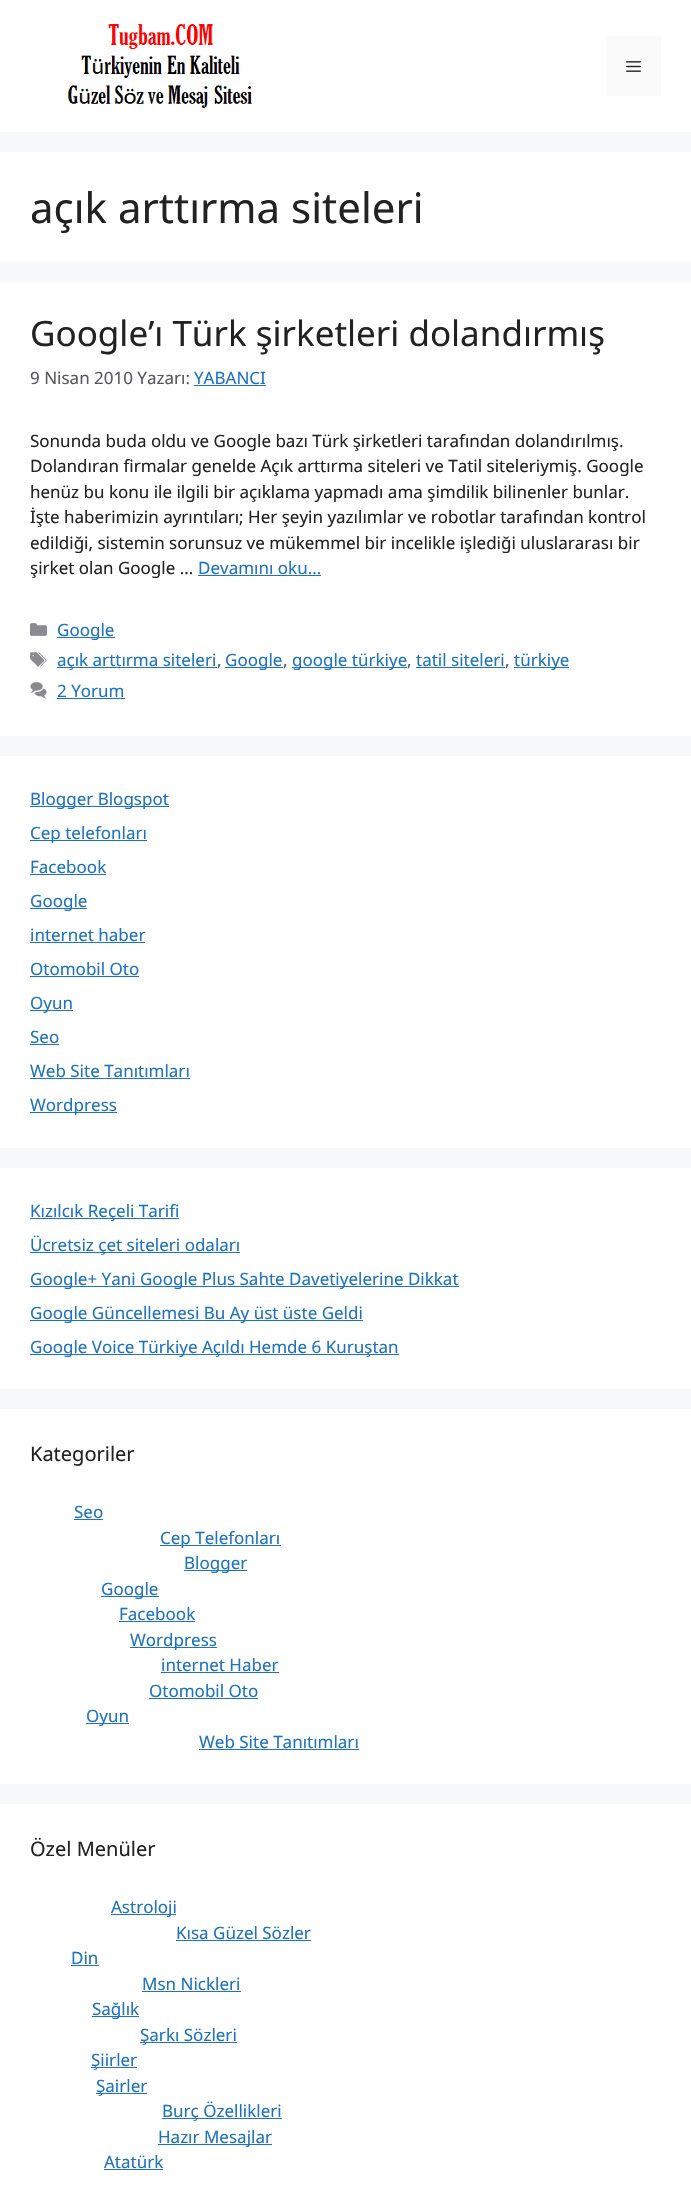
void draw(SkCanvas* canvas) {
	SkPaint paint;
	paint.setAntiAlias(true);
	canvas->clear(0xfff7f8f9);
	paint.setColor(0xffffffff);
	canvas->drawRect(SkRect::MakeXYWH(0, 0, 691, 132), paint);
	canvas->drawImageRect(SkImages::DeferredFromEncodedData(SkData::MakeFromFileName("img1.png")), SkRect::MakeXYWH(67, 24, 185, 84), SkSamplingOptions());
	paint.setColor(0xfffafafa);
	canvas->drawRect(SkRect::MakeXYWH(606, 36, 55, 60), paint);
	canvas->drawImageRect(SkImages::DeferredFromEncodedData(SkData::MakeFromFileName("img2.png")), SkRect::MakeXYWH(626, 61, 15, 11), SkSamplingOptions());
	paint.setColor(0xffffffff);
	canvas->drawRect(SkRect::MakeXYWH(0, 152, 691, 110), paint);
	SkFont f1(fontMgr->matchFamilyStyle("Noto Sans", SkFontStyle::Normal()), 42);
	f1.setSubpixel(true);
	paint.setColor(0xff222222);
	canvas->drawString("açık arttırma siteleri", 30, 223, f1, paint);
	paint.setColor(0xffffffff);
	canvas->drawRect(SkRect::MakeXYWH(0, 282, 691, 454), paint);
	SkFont f2(fontMgr->matchFamilyStyle("Noto Sans", SkFontStyle::Normal()), 35);
	f2.setSubpixel(true);
	paint.setColor(0xff222222);
	canvas->drawString("Google’ı Türk şirketleri dolandırmış", 30, 346, f2, paint);
	SkFont f3(fontMgr->matchFamilyStyle("Noto Sans", SkFontStyle::Normal()), 17);
	f3.setSubpixel(true);
	paint.setColor(0xff575760);
	canvas->drawString("9 Nisan 2010 Yazarı:", 30, 384, f3, paint);
	paint.setColor(0xff1e73be);
	canvas->drawString("YABANCI", 194, 384, f3, paint);
	canvas->drawRect(SkRect::MakeXYWH(194, 385, 72, 1), paint);
	paint.setColor(0xff222222);
	canvas->drawString("Sonunda buda oldu ve Google bazı Türk şirketleri tarafından dolandırılmış.", 30, 447, f3, paint);
	canvas->drawString("Dolandıran firmalar genelde Açık arttırma siteleri ve Tatil siteleriymiş. Google", 30, 472, f3, paint);
	canvas->drawString("henüz bu konu ile ilgili bir açıklama yapmadı ama şimdilik bilinenler bunlar.", 30, 498, f3, paint);
	canvas->drawString("İşte haberimizin ayrıntıları; Her şeyin yazılımlar ve robotlar tarafından kontrol", 30, 523, f3, paint);
	canvas->drawString("edildiği, sistemin sorunsuz ve mükemmel bir incelikle işlediği uluslararası bir", 30, 549, f3, paint);
	canvas->drawString("şirket olan Google …", 30, 574, f3, paint);
	paint.setColor(0xff1e73be);
	canvas->drawString("Devamını oku…", 198, 574, f3, paint);
	canvas->drawRect(SkRect::MakeXYWH(198, 575, 123, 1), paint);
	canvas->drawImageRect(SkImages::DeferredFromEncodedData(SkData::MakeFromFileName("img3.png")), SkRect::MakeXYWH(30, 623, 17, 13), SkSamplingOptions());
	canvas->drawRect(SkRect::MakeXYWH(57, 637, 58, 1), paint);
	canvas->drawString("Google", 57, 636, f3, paint);
	canvas->drawImageRect(SkImages::DeferredFromEncodedData(SkData::MakeFromFileName("img4.png")), SkRect::MakeXYWH(30, 652, 17, 15), SkSamplingOptions());
	canvas->drawRect(SkRect::MakeXYWH(57, 667, 160, 1), paint);
	canvas->drawString("açık arttırma siteleri", 57, 666, f3, paint);
	paint.setColor(0xff575760);
	canvas->drawString(",", 217, 666, f3, paint);
	paint.setColor(0xff1e73be);
	canvas->drawRect(SkRect::MakeXYWH(225, 667, 58, 1), paint);
	canvas->drawString("Google", 225, 666, f3, paint);
	paint.setColor(0xff575760);
	canvas->drawString(",", 283, 666, f3, paint);
	paint.setColor(0xff1e73be);
	canvas->drawRect(SkRect::MakeXYWH(292, 667, 115, 1), paint);
	canvas->drawString("google türkiye", 292, 666, f3, paint);
	paint.setColor(0xff575760);
	canvas->drawString(",", 407, 666, f3, paint);
	paint.setColor(0xff1e73be);
	canvas->drawString("tatil siteleri", 416, 666, f3, paint);
	canvas->drawRect(SkRect::MakeXYWH(416, 667, 89, 1), paint);
	paint.setColor(0xff575760);
	canvas->drawString(",", 505, 666, f3, paint);
	paint.setColor(0xff1e73be);
	canvas->drawRect(SkRect::MakeXYWH(514, 667, 55, 1), paint);
	canvas->drawString("türkiye", 514, 666, f3, paint);
	canvas->drawImageRect(SkImages::DeferredFromEncodedData(SkData::MakeFromFileName("img5.png")), SkRect::MakeXYWH(30, 682, 17, 17), SkSamplingOptions());
	canvas->drawString("2 Yorum", 57, 697, f3, paint);
	canvas->drawRect(SkRect::MakeXYWH(57, 698, 68, 1), paint);
	paint.setColor(0xffffffff);
	canvas->drawRect(SkRect::MakeXYWH(0, 756, 691, 392), paint);
	paint.setColor(0xff1e73be);
	canvas->drawRect(SkRect::MakeXYWH(30, 806, 139, 1), paint);
	canvas->drawString("Blogger Blogspot", 30, 805, f3, paint);
	canvas->drawRect(SkRect::MakeXYWH(30, 840, 117, 1), paint);
	canvas->drawString("Cep telefonları", 30, 839, f3, paint);
	canvas->drawString("Facebook", 30, 873, f3, paint);
	canvas->drawRect(SkRect::MakeXYWH(30, 874, 76, 1), paint);
	canvas->drawRect(SkRect::MakeXYWH(30, 908, 57, 1), paint);
	canvas->drawString("Google", 30, 907, f3, paint);
	canvas->drawString("internet haber", 30, 941, f3, paint);
	canvas->drawRect(SkRect::MakeXYWH(30, 942, 115, 1), paint);
	canvas->drawString("Otomobil Oto", 30, 975, f3, paint);
	canvas->drawRect(SkRect::MakeXYWH(30, 976, 109, 1), paint);
	canvas->drawRect(SkRect::MakeXYWH(30, 1010, 43, 1), paint);
	canvas->drawString("Oyun", 30, 1009, f3, paint);
	canvas->drawString("Seo", 30, 1043, f3, paint);
	canvas->drawRect(SkRect::MakeXYWH(30, 1044, 29, 1), paint);
	canvas->drawString("Web Site Tanıtımları", 30, 1077, f3, paint);
	canvas->drawRect(SkRect::MakeXYWH(30, 1078, 160, 1), paint);
	canvas->drawRect(SkRect::MakeXYWH(30, 1112, 87, 1), paint);
	canvas->drawString("Wordpress", 30, 1111, f3, paint);
	paint.setColor(0xffffffff);
	canvas->drawRect(SkRect::MakeXYWH(0, 1168, 691, 221), paint);
	paint.setColor(0xff1e73be);
	canvas->drawRect(SkRect::MakeXYWH(30, 1218, 149, 1), paint);
	canvas->drawString("Kızılcık Reçeli Tarifi", 30, 1217, f3, paint);
	canvas->drawRect(SkRect::MakeXYWH(30, 1252, 210, 1), paint);
	canvas->drawString("Ücretsiz çet siteleri odaları", 30, 1251, f3, paint);
	canvas->drawRect(SkRect::MakeXYWH(30, 1286, 429, 1), paint);
	canvas->drawString("Google+ Yani Google Plus Sahte Davetiyelerine Dikkat", 30, 1285, f3, paint);
	canvas->drawRect(SkRect::MakeXYWH(30, 1320, 333, 1), paint);
	canvas->drawString("Google Güncellemesi Bu Ay üst üste Geldi", 30, 1319, f3, paint);
	canvas->drawRect(SkRect::MakeXYWH(30, 1354, 369, 1), paint);
	canvas->drawString("Google Voice Türkiye Açıldı Hemde 6 Kuruştan", 30, 1353, f3, paint);
	paint.setColor(0xffffffff);
	canvas->drawRect(SkRect::MakeXYWH(0, 1409, 691, 375), paint);
	SkFont f4(fontMgr->matchFamilyStyle("Noto Sans", SkFontStyle::Normal()), 20);
	f4.setSubpixel(true);
	paint.setColor(0xff222222);
	canvas->drawString("Kategoriler", 30, 1461, f4, paint);
	paint.setColor(0xff1e73be);
	canvas->drawString("Seo", 74, 1518, f3, paint);
	canvas->drawRect(SkRect::MakeXYWH(74, 1519, 29, 1), paint);
	canvas->drawRect(SkRect::MakeXYWH(160, 1545, 121, 1), paint);
	canvas->drawString("Cep Telefonları", 160, 1544, f3, paint);
	canvas->drawRect(SkRect::MakeXYWH(184, 1570, 63, 1), paint);
	canvas->drawString("Blogger", 184, 1569, f3, paint);
	canvas->drawRect(SkRect::MakeXYWH(101, 1596, 58, 1), paint);
	canvas->drawString("Google", 101, 1595, f3, paint);
	canvas->drawString("Facebook", 119, 1620, f3, paint);
	canvas->drawRect(SkRect::MakeXYWH(119, 1621, 76, 1), paint);
	canvas->drawRect(SkRect::MakeXYWH(130, 1647, 87, 1), paint);
	canvas->drawString("Wordpress", 130, 1646, f3, paint);
	canvas->drawString("internet Haber", 161, 1671, f3, paint);
	canvas->drawRect(SkRect::MakeXYWH(161, 1672, 118, 1), paint);
	canvas->drawString("Otomobil Oto", 149, 1697, f3, paint);
	canvas->drawRect(SkRect::MakeXYWH(149, 1698, 109, 1), paint);
	canvas->drawRect(SkRect::MakeXYWH(86, 1723, 43, 1), paint);
	canvas->drawString("Oyun", 86, 1722, f3, paint);
	canvas->drawString("Web Site Tanıtımları", 199, 1748, f3, paint);
	canvas->drawRect(SkRect::MakeXYWH(199, 1749, 160, 1), paint);
	paint.setColor(0xffffffff);
	canvas->drawRect(SkRect::MakeXYWH(0, 1804, 691, 385), paint);
	paint.setColor(0xff222222);
	canvas->drawString("Özel Menüler", 30, 1856, f4, paint);
	paint.setColor(0xff1e73be);
	canvas->drawRect(SkRect::MakeXYWH(111, 1914, 65, 1), paint);
	canvas->drawString("Astroloji", 111, 1913, f3, paint);
	canvas->drawString("Kısa Güzel Sözler", 176, 1939, f3, paint);
	canvas->drawRect(SkRect::MakeXYWH(176, 1940, 135, 1), paint);
	canvas->drawString("Din", 71, 1964, f3, paint);
	canvas->drawRect(SkRect::MakeXYWH(71, 1965, 28, 1), paint);
	canvas->drawString("Msn Nickleri", 142, 1990, f3, paint);
	canvas->drawRect(SkRect::MakeXYWH(142, 1991, 99, 1), paint);
	canvas->drawRect(SkRect::MakeXYWH(92, 2016, 47, 1), paint);
	canvas->drawString("Sağlık", 92, 2015, f3, paint);
	canvas->drawRect(SkRect::MakeXYWH(140, 2042, 97, 1), paint);
	canvas->drawString("Şarkı Sözleri", 140, 2041, f3, paint);
	canvas->drawRect(SkRect::MakeXYWH(91, 2067, 46, 1), paint);
	canvas->drawString("Şiirler", 91, 2066, f3, paint);
	canvas->drawRect(SkRect::MakeXYWH(96, 2093, 51, 1), paint);
	canvas->drawString("Şairler", 96, 2092, f3, paint);
	canvas->drawRect(SkRect::MakeXYWH(162, 2118, 120, 1), paint);
	canvas->drawString("Burç Özellikleri", 162, 2117, f3, paint);
	canvas->drawRect(SkRect::MakeXYWH(158, 2144, 114, 1), paint);
	canvas->drawString("Hazır Mesajlar", 158, 2143, f3, paint);
	canvas->drawString("Atatürk", 104, 2168, f3, paint);
	canvas->drawRect(SkRect::MakeXYWH(104, 2169, 59, 1), paint);
}
